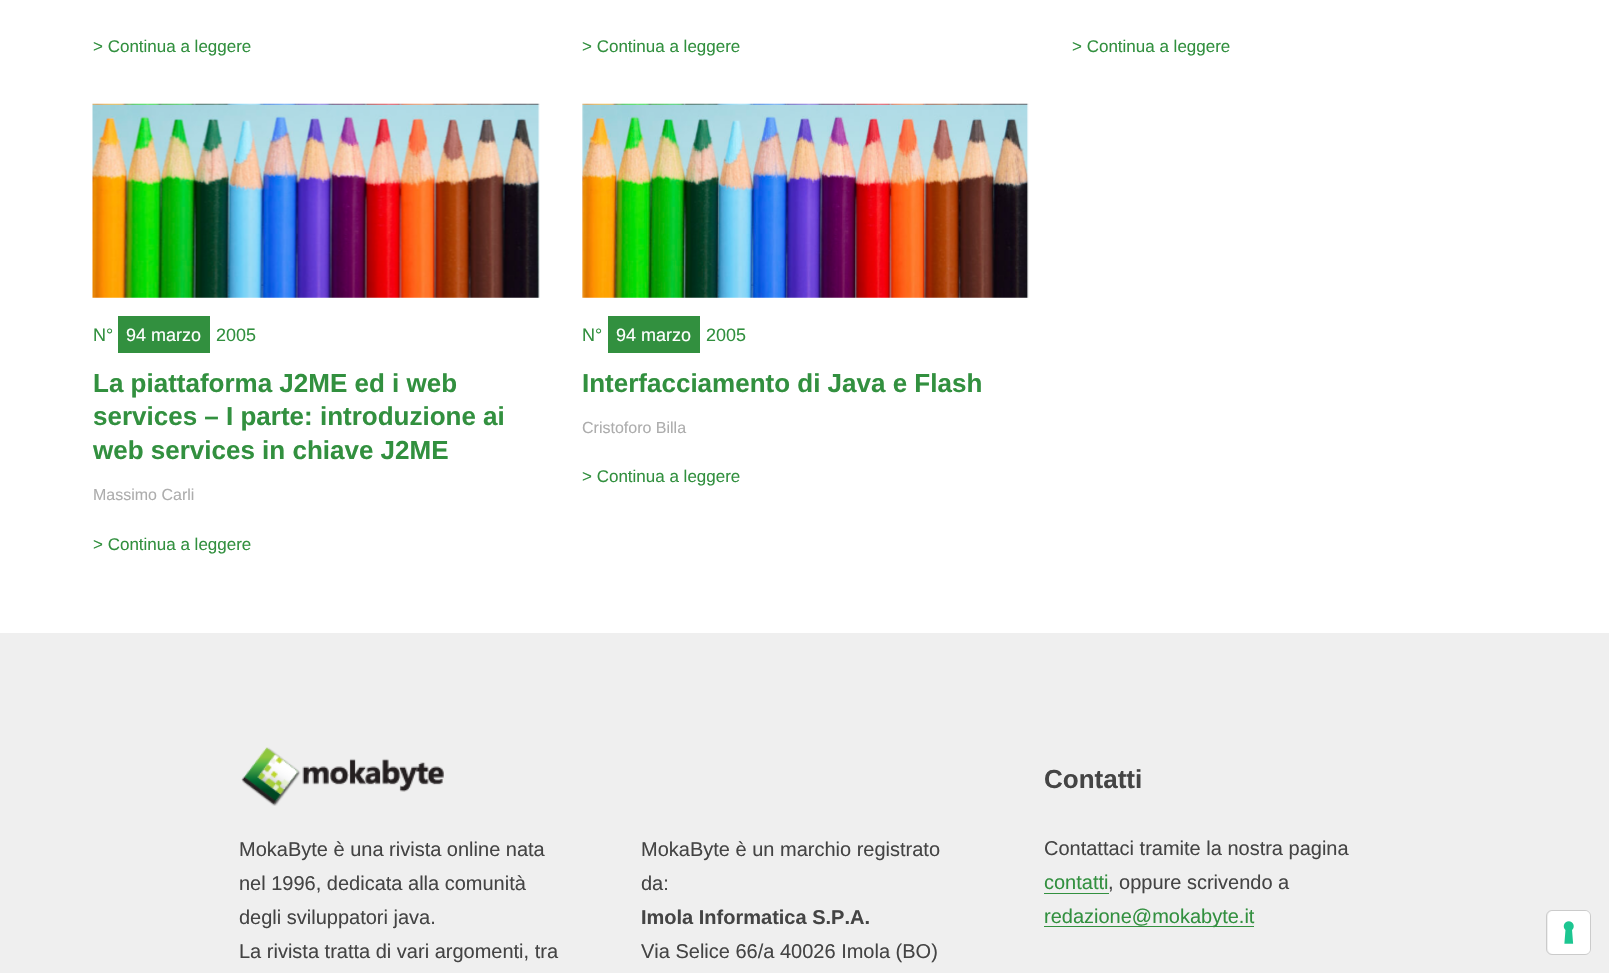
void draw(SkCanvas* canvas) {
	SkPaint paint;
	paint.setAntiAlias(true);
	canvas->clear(0xffffffff);
	SkFont f1(fontMgr->matchFamilyStyle("Liberation Sans", SkFontStyle::Normal()), 17);
	f1.setSubpixel(true);
	paint.setColor(0xff32903f);
	canvas->drawString("> Continua a leggere", 93, 52, f1, paint);
	canvas->drawString("> Continua a leggere", 582, 52, f1, paint);
	canvas->drawString("> Continua a leggere", 1072, 52, f1, paint);
	canvas->drawImageRect(SkImages::DeferredFromEncodedData(SkData::MakeFromFileName("img1.png")), SkRect::MakeXYWH(92, 103, 448, 195), SkSamplingOptions());
	SkFont f2(fontMgr->matchFamilyStyle("Liberation Sans", SkFontStyle::Normal()), 18);
	f2.setSubpixel(true);
	canvas->drawString("N°", 93, 341, f2, paint);
	canvas->drawRect(SkRect::MakeXYWH(118, 316, 92, 37), paint);
	paint.setColor(0xffffffff);
	canvas->drawString("94 marzo", 126, 341, f2, paint);
	paint.setColor(0xff32903f);
	canvas->drawString("2005", 216, 341, f2, paint);
	SkFont f3(fontMgr->matchFamilyStyle("Liberation Sans", SkFontStyle::Bold()), 26);
	f3.setSubpixel(true);
	canvas->drawString("La piattaforma J2ME ed i web", 93, 392, f3, paint);
	canvas->drawString("services – I parte: introduzione ai", 93, 425, f3, paint);
	canvas->drawString("web services in chiave J2ME", 93, 459, f3, paint);
	SkFont f4(fontMgr->matchFamilyStyle("Liberation Sans", SkFontStyle::Normal()), 16);
	f4.setSubpixel(true);
	paint.setColor(0xffadadad);
	canvas->drawString("Massimo Carli", 93, 500, f4, paint);
	paint.setColor(0xff32903f);
	canvas->drawString("> Continua a leggere", 93, 550, f1, paint);
	canvas->drawImageRect(SkImages::DeferredFromEncodedData(SkData::MakeFromFileName("img2.png")), SkRect::MakeXYWH(582, 103, 447, 195), SkSamplingOptions());
	canvas->drawString("N°", 582, 341, f2, paint);
	canvas->drawRect(SkRect::MakeXYWH(608, 316, 92, 37), paint);
	paint.setColor(0xffffffff);
	canvas->drawString("94 marzo", 616, 341, f2, paint);
	paint.setColor(0xff32903f);
	canvas->drawString("2005", 706, 341, f2, paint);
	canvas->drawString("Interfacciamento di Java e Flash", 582, 392, f3, paint);
	paint.setColor(0xffadadad);
	canvas->drawString("Cristoforo Billa", 582, 433, f4, paint);
	paint.setColor(0xff32903f);
	canvas->drawString("> Continua a leggere", 582, 482, f1, paint);
	paint.setColor(0xffefefef);
	canvas->drawRect(SkRect::MakeXYWH(0, 633, 1609, 340), paint);
	canvas->drawImageRect(SkImages::DeferredFromEncodedData(SkData::MakeFromFileName("img3.png")), SkRect::MakeXYWH(241, 747, 203, 59), SkSamplingOptions());
	SkFont f5(fontMgr->matchFamilyStyle("Liberation Sans", SkFontStyle::Normal()), 20);
	f5.setSubpixel(true);
	paint.setColor(0xff444444);
	canvas->drawString("MokaByte è una rivista online nata", 239, 856, f5, paint);
	canvas->drawString("nel 1996, dedicata alla comunità", 239, 890, f5, paint);
	canvas->drawString("degli sviluppatori java.", 239, 924, f5, paint);
	canvas->drawString("La rivista tratta di vari argomenti, tra", 239, 958, f5, paint);
	canvas->drawString("MokaByte è un marchio registrato", 641, 856, f5, paint);
	canvas->drawString("da:", 641, 890, f5, paint);
	SkFont f6(fontMgr->matchFamilyStyle("Liberation Sans", SkFontStyle::Bold()), 20);
	f6.setSubpixel(true);
	canvas->drawString("Imola Informatica S.P.A.", 641, 924, f6, paint);
	canvas->drawString("Via Selice 66/a 40026 Imola (BO)", 641, 958, f5, paint);
	canvas->drawString("Contatti", 1044, 788, f3, paint);
	canvas->drawString("Contattaci tramite la nostra pagina", 1044, 855, f5, paint);
	paint.setColor(0xff32903f);
	canvas->drawString("contatti", 1044, 889, f5, paint);
	canvas->drawRect(SkRect::MakeXYWH(1044, 893, 65, 1), paint);
	paint.setColor(0xff444444);
	canvas->drawString(", oppure scrivendo a", 1108, 889, f5, paint);
	paint.setColor(0xff32903f);
	canvas->drawRect(SkRect::MakeXYWH(1044, 926, 210, 1), paint);
	canvas->drawString("redazione@mokabyte.it", 1044, 923, f5, paint);
	paint.setStroke(true);
	paint.setStrokeWidth(1);
	paint.setColor(0xffcbcbcb);
	canvas->drawRoundRect(SkRect::MakeXYWH(1546.5, 910.5, 44, 44), 5.5, 5.5, paint);
	paint.setStroke(false);
	paint.setColor(0xffffffff);
	canvas->drawRoundRect(SkRect::MakeXYWH(1548, 911, 42, 43), 5, 5, paint);
	canvas->drawImageRect(SkImages::DeferredFromEncodedData(SkData::MakeFromFileName("img4.png")), SkRect::MakeXYWH(1563, 921, 11, 23), SkSamplingOptions());
}
